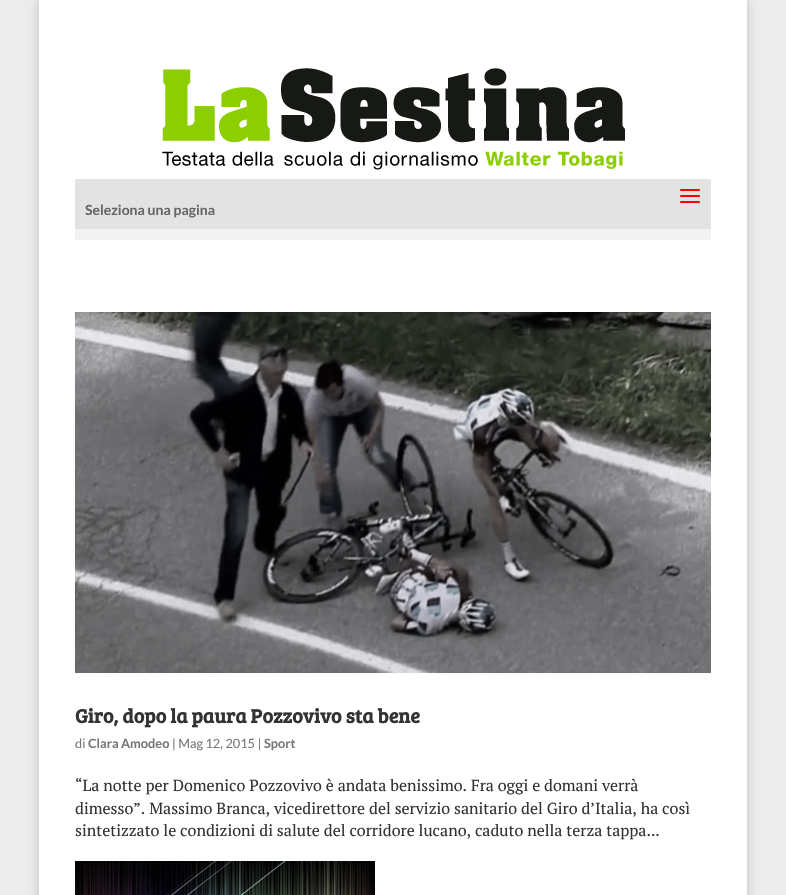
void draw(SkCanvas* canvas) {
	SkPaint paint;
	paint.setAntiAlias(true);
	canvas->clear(0xffededed);
	paint.setColor(0x33000000);
	paint.setMaskFilter(SkMaskFilter::MakeBlur(kNormal_SkBlurStyle, 5));
	canvas->drawRect(SkRect::MakeXYWH(39, 0, 708, 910), paint);
	paint.setMaskFilter(nullptr);
	paint.setColor(0xffffffff);
	canvas->drawRect(SkRect::MakeXYWH(39, 0, 708, 895), paint);
	canvas->drawImageRect(SkImages::DeferredFromEncodedData(SkData::MakeFromFileName("img1.png")), SkRect::MakeXYWH(162, 68, 463, 102), SkSamplingOptions());
	paint.setColor(0xfff0f0f0);
	canvas->drawRect(SkRect::MakeXYWH(75, 179, 636, 50), paint);
	paint.setColor(0x0d000000);
	canvas->drawRect(SkRect::MakeXYWH(75, 179, 636, 61), paint);
	canvas->drawImageRect(SkImages::DeferredFromEncodedData(SkData::MakeFromFileName("img2.png")), SkRect::MakeXYWH(680, 189, 20, 14), SkSamplingOptions());
	SkFont f1(fontMgr->matchFamilyStyle("Lato", SkFontStyle::Bold()), 14);
	f1.setSubpixel(true);
	paint.setColor(0xff666666);
	canvas->drawString("Seleziona una pagina", 85, 215, f1, paint);
	canvas->drawImageRect(SkImages::DeferredFromEncodedData(SkData::MakeFromFileName("img3.png")), SkRect::MakeXYWH(75, 312, 636, 361), SkSamplingOptions());
	SkFont f2(fontMgr->matchFamilyStyle("Bree Serif", SkFontStyle::Bold()), 20);
	f2.setSubpixel(true);
	paint.setColor(0xff333333);
	canvas->drawString("Giro, dopo la paura Pozzovivo sta bene", 75, 723, f2, paint);
	SkFont f3(fontMgr->matchFamilyStyle("Lato", SkFontStyle::Normal()), 12.75);
	f3.setSubpixel(true);
	paint.setColor(0xff777777);
	canvas->drawString("di", 75, 748, f3, paint);
	SkFont f4(fontMgr->matchFamilyStyle("Lato", SkFontStyle::Bold()), 12.75);
	f4.setSubpixel(true);
	canvas->drawString("Clara Amodeo", 88, 748, f4, paint);
	canvas->drawString("| Mag 12, 2015 |", 172, 748, f3, paint);
	canvas->drawString("Sport", 264, 748, f4, paint);
	SkFont f5(fontMgr->matchFamilyStyle("PT Serif", SkFontStyle::Normal()), 16);
	f5.setSubpixel(true);
	paint.setColor(0xff333333);
	canvas->drawString("“La notte per Domenico Pozzovivo è andata benissimo. Fra oggi e domani verrà", 75, 791, f5, paint);
	canvas->drawString("dimesso”. Massimo Branca, vicedirettore del servizio sanitario del Giro d’Italia, ha così", 75, 814, f5, paint);
	canvas->drawString("sintetizzato le condizioni di salute del corridore lucano, caduto nella terza tappa...", 75, 836, f5, paint);
	canvas->drawImageRect(SkImages::DeferredFromEncodedData(SkData::MakeFromFileName("img4.png")), SkRect::MakeXYWH(75, 861, 300, 34), SkSamplingOptions());
}
